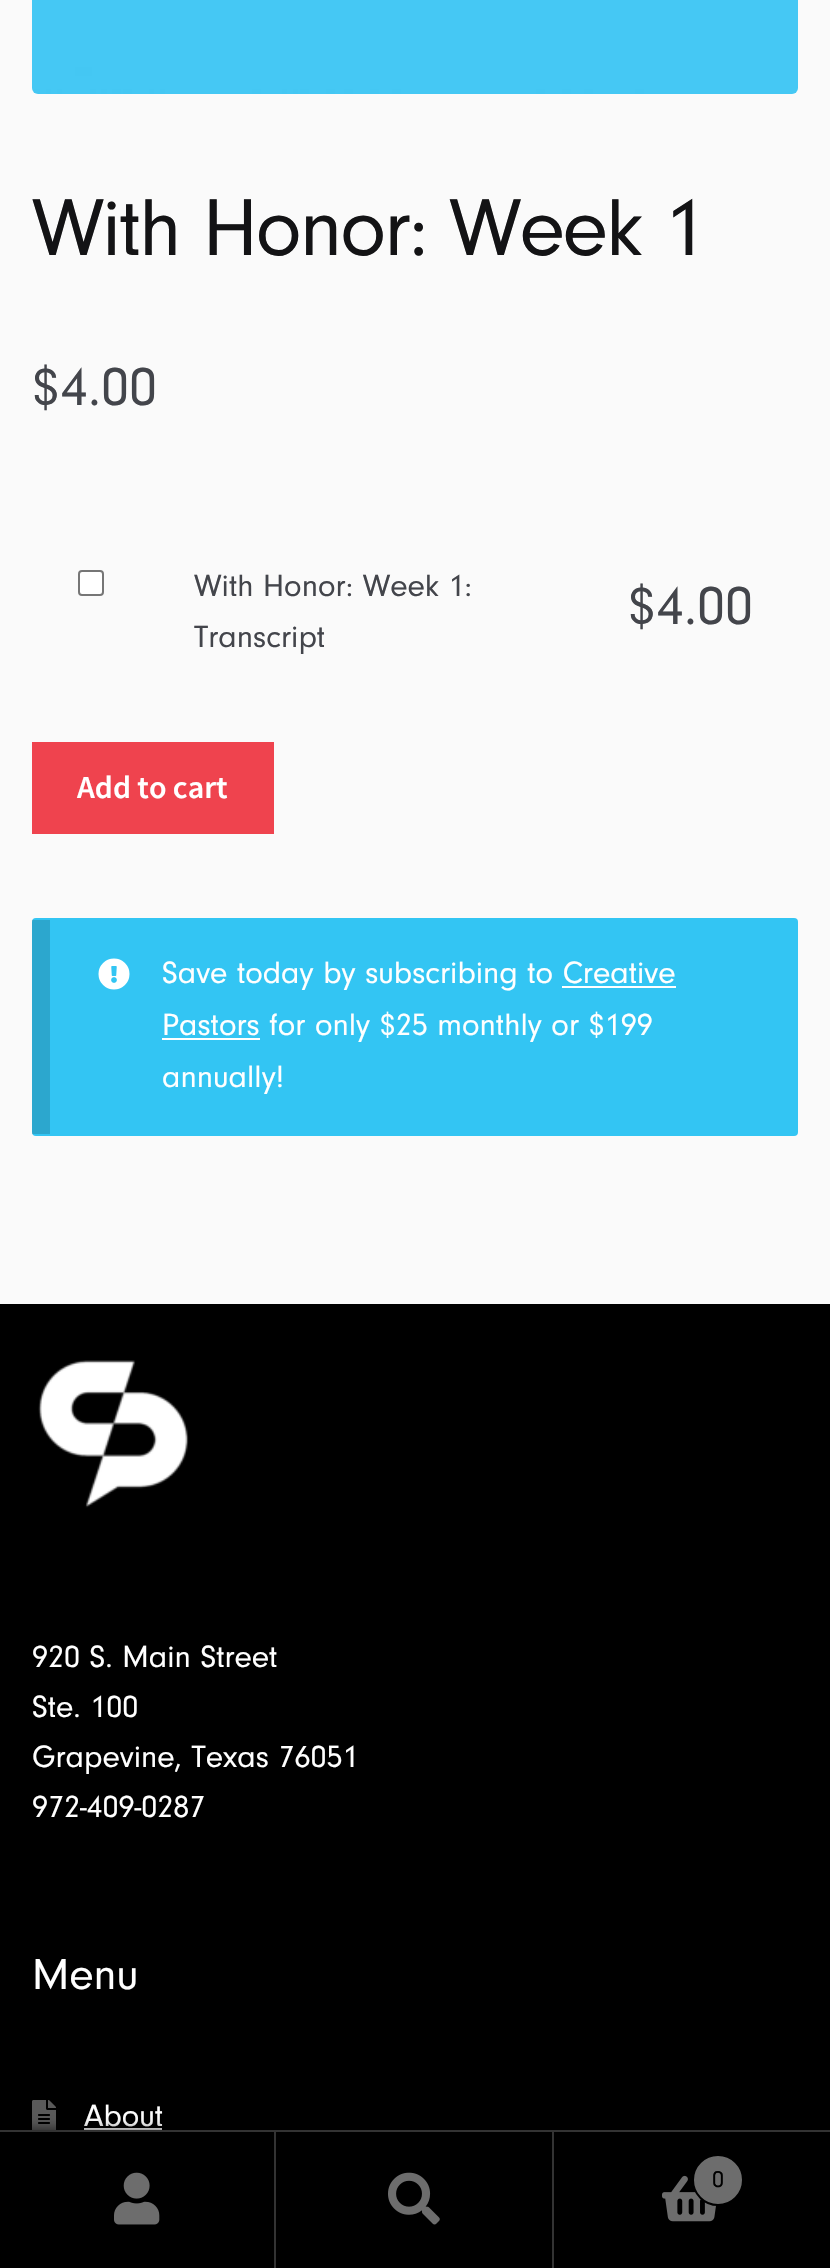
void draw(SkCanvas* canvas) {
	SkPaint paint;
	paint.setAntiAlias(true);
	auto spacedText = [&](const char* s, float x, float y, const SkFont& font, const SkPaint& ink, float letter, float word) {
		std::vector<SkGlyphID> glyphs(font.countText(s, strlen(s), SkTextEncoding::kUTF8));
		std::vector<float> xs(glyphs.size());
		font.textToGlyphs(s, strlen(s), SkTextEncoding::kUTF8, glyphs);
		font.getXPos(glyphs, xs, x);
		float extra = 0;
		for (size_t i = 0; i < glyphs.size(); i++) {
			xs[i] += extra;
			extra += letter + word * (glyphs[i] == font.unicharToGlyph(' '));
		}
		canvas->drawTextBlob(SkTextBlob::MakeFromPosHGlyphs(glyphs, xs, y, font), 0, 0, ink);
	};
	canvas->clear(0xfffafafa);
	canvas->drawImageRect(SkImages::DeferredFromEncodedData(SkData::MakeFromFileName("img1.png")), SkRect::MakeXYWH(32, 0, 766, 94), SkSamplingOptions());
	SkFont f1(fontMgr->matchFamilyStyle("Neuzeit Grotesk", SkFontStyle::Normal()), 83.75);
	f1.setSubpixel(true);
	paint.setColor(0xff131315);
	spacedText("With Honor: Week 1", 32, 255, f1, paint, -2, 0);
	SkFont f2(fontMgr->matchFamilyStyle("Neuzeit Grotesk", SkFontStyle::Normal()), 56);
	f2.setSubpixel(true);
	paint.setColor(0xff43454b);
	canvas->drawString("$4.00", 32, 405, f2, paint);
	paint.setColor(0xffffffff);
	canvas->drawRoundRect(SkRect::MakeXYWH(79, 571, 24, 24), 3, 3, paint);
	paint.setStroke(true);
	paint.setStrokeWidth(2);
	paint.setColor(0xff767676);
	canvas->drawRoundRect(SkRect::MakeXYWH(79, 571, 24, 24), 3, 3, paint);
	SkFont f3(fontMgr->matchFamilyStyle("Neuzeit Grotesk", SkFontStyle::Normal()), 32);
	f3.setSubpixel(true);
	paint.setStroke(false);
	paint.setColor(0xff43454b);
	canvas->drawString("With Honor: Week 1:", 194, 596, f3, paint);
	canvas->drawString("Transcript", 194, 647, f3, paint);
	canvas->drawString("$4.00", 628, 624, f2, paint);
	paint.setColor(0xffef434e);
	canvas->drawRect(SkRect::MakeXYWH(32, 742, 242, 92), paint);
	SkFont f4(fontMgr->matchFamilyStyle("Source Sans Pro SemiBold", SkFontStyle(600, SkFontStyle::kNormal_Width, SkFontStyle::kUpright_Slant)), 32);
	f4.setSubpixel(true);
	paint.setColor(0xffffffff);
	canvas->drawString("Add to cart", 77, 798, f4, paint);
	paint.setColor(0xff33c5f3);
	canvas->drawRoundRect(SkRect::MakeXYWH(32, 918, 766, 218), 4, 4, paint);
	paint.setColor(0x26000000);
	canvas->drawRect(SkRect::MakeXYWH(32, 920, 18, 214), paint);
	canvas->drawImageRect(SkImages::DeferredFromEncodedData(SkData::MakeFromFileName("img2.png")), SkRect::MakeXYWH(98, 958, 32, 32), SkSamplingOptions());
	paint.setColor(0xffffffff);
	canvas->drawString("Save today by subscribing to Creative", 162, 983, f3, paint);
	canvas->drawRect(SkRect::MakeXYWH(162, 1038, 98, 2), paint);
	canvas->drawString("Pastors for only $25 monthly or $199", 162, 1035, f3, paint);
	canvas->drawRect(SkRect::MakeXYWH(562, 986, 114, 2), paint);
	canvas->drawString("annually!", 162, 1087, f3, paint);
	paint.setColor(0xff000000);
	canvas->drawRect(SkRect::MakeXYWH(0, 1304, 830, 826), paint);
	canvas->drawImageRect(SkImages::DeferredFromEncodedData(SkData::MakeFromFileName("img3.png")), SkRect::MakeXYWH(38, 1360, 151, 148), SkSamplingOptions());
	paint.setColor(0xffffffff);
	canvas->drawString("920 S. Main Street", 32, 1667, f3, paint);
	canvas->drawString("Ste. 100", 32, 1717, f3, paint);
	canvas->drawString("Grapevine, Texas 76051", 32, 1767, f3, paint);
	canvas->drawString("972-409-0287", 32, 1817, f3, paint);
	SkFont f5(fontMgr->matchFamilyStyle("Neuzeit Grotesk", SkFontStyle::Normal()), 45);
	f5.setSubpixel(true);
	canvas->drawString("Menu", 32, 1989, f5, paint);
	canvas->drawImageRect(SkImages::DeferredFromEncodedData(SkData::MakeFromFileName("img4.png")), SkRect::MakeXYWH(32, 2100, 24, 30), SkSamplingOptions());
	canvas->drawString("About", 84, 2126, f3, paint);
	canvas->drawRect(SkRect::MakeXYWH(84, 2128, 78, 2), paint);
	paint.setColor(0xb3000000);
	paint.setMaskFilter(SkMaskFilter::MakeBlur(kNormal_SkBlurStyle, 6));
	canvas->drawRect(SkRect::MakeXYWH(0, 2130, 830, 138), paint);
	paint.setMaskFilter(nullptr);
	paint.setColor(0xff333333);
	canvas->drawRect(SkRect::MakeXYWH(0, 2130, 830, 2), paint);
	paint.setColor(0xff000000);
	canvas->drawRect(SkRect::MakeXYWH(0, 2132, 274, 136), paint);
	paint.setColor(0xff333333);
	canvas->drawRect(SkRect::MakeXYWH(274, 2132, 2, 136), paint);
	canvas->drawImageRect(SkImages::DeferredFromEncodedData(SkData::MakeFromFileName("img5.png")), SkRect::MakeXYWH(114, 2172, 46, 53), SkSamplingOptions());
	paint.setColor(0xff000000);
	canvas->drawRect(SkRect::MakeXYWH(276, 2132, 276, 136), paint);
	paint.setColor(0xff333333);
	canvas->drawRect(SkRect::MakeXYWH(552, 2132, 2, 136), paint);
	canvas->drawImageRect(SkImages::DeferredFromEncodedData(SkData::MakeFromFileName("img6.png")), SkRect::MakeXYWH(388, 2172, 52, 53), SkSamplingOptions());
	paint.setColor(0xff000000);
	canvas->drawRect(SkRect::MakeXYWH(554, 2132, 276, 136), paint);
	canvas->drawImageRect(SkImages::DeferredFromEncodedData(SkData::MakeFromFileName("img7.png")), SkRect::MakeXYWH(662, 2175, 55, 47), SkSamplingOptions());
	paint.setColor(0xff6d6d6d);
	canvas->drawCircle(718, 2180, 25, paint);
	paint.setStroke(true);
	paint.setColor(0xff000000);
	canvas->drawCircle(718, 2180, 25, paint);
	SkFont f6(fontMgr->matchFamilyStyle("Neuzeit Grotesk", SkFontStyle::Normal()), 24);
	f6.setSubpixel(true);
	paint.setStroke(false);
	canvas->drawString("0", 712, 2187, f6, paint);
}
